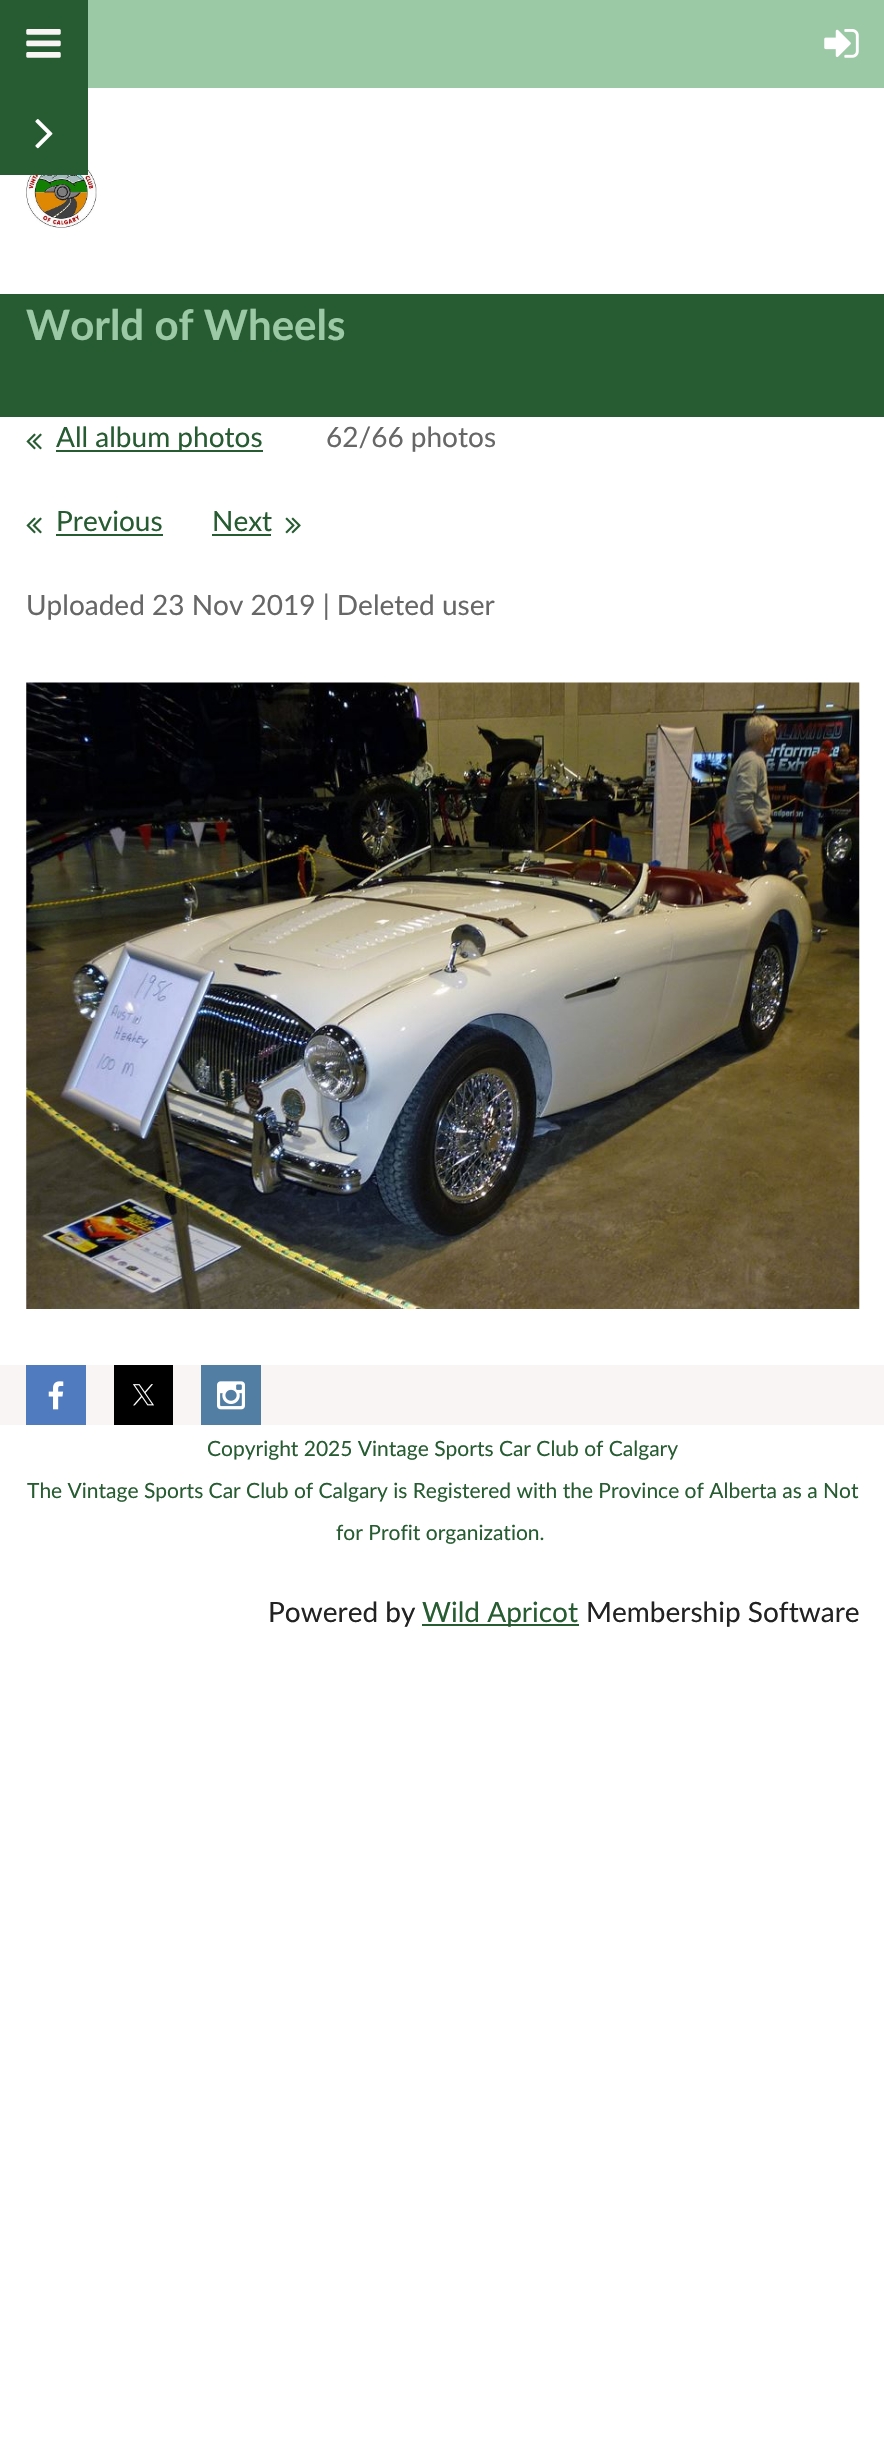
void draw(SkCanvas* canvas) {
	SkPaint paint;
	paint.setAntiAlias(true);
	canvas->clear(0xffffffff);
	canvas->drawImageRect(SkImages::DeferredFromEncodedData(SkData::MakeFromFileName("img4.png")), SkRect::MakeXYWH(26, 157, 71, 71), SkSamplingOptions());
	paint.setColor(0xff275c32);
	canvas->drawRect(SkRect::MakeXYWH(0, 0, 88, 175), paint);
	canvas->drawImageRect(SkImages::DeferredFromEncodedData(SkData::MakeFromFileName("img1.png")), SkRect::MakeXYWH(35, 119, 18, 30), SkSamplingOptions());
	paint.setColor(0xff9cc9a5);
	canvas->drawRect(SkRect::MakeXYWH(88, 0, 796, 88), paint);
	canvas->drawImageRect(SkImages::DeferredFromEncodedData(SkData::MakeFromFileName("img2.png")), SkRect::MakeXYWH(26, 29, 35, 29), SkSamplingOptions());
	canvas->drawImageRect(SkImages::DeferredFromEncodedData(SkData::MakeFromFileName("img3.png")), SkRect::MakeXYWH(824, 29, 35, 29), SkSamplingOptions());
	paint.setColor(0xff275c32);
	canvas->drawRect(SkRect::MakeXYWH(0, 294, 884, 123), paint);
	SkFont f1(fontMgr->matchFamilyStyle("Lato", SkFontStyle::Bold()), 42);
	f1.setSubpixel(true);
	paint.setColor(0xff9cc9a5);
	canvas->drawString("World of Wheels", 26, 340, f1, paint);
	canvas->drawImageRect(SkImages::DeferredFromEncodedData(SkData::MakeFromFileName("img5.png")), SkRect::MakeXYWH(26, 433, 16, 17), SkSamplingOptions());
	paint.setColor(0xff275c32);
	canvas->drawRect(SkRect::MakeXYWH(56, 450, 207, 2), paint);
	SkFont f2(fontMgr->matchFamilyStyle("Lato", SkFontStyle::Normal()), 28);
	f2.setSubpixel(true);
	canvas->drawString("All album photos", 56, 447, f2, paint);
	paint.setColor(0xff676767);
	canvas->drawString("62/66 photos", 326, 447, f2, paint);
	canvas->drawImageRect(SkImages::DeferredFromEncodedData(SkData::MakeFromFileName("img5.png")), SkRect::MakeXYWH(26, 517, 16, 17), SkSamplingOptions());
	paint.setColor(0xff275c32);
	canvas->drawString("Previous", 56, 531, f2, paint);
	canvas->drawRect(SkRect::MakeXYWH(56, 534, 107, 2), paint);
	canvas->drawString("Next", 212, 531, f2, paint);
	canvas->drawRect(SkRect::MakeXYWH(212, 534, 59, 2), paint);
	canvas->drawImageRect(SkImages::DeferredFromEncodedData(SkData::MakeFromFileName("img6.png")), SkRect::MakeXYWH(285, 517, 16, 17), SkSamplingOptions());
	paint.setColor(0xff676767);
	canvas->drawString("Uploaded 23 Nov 2019 | Deleted user", 26, 615, f2, paint);
	canvas->drawImageRect(SkImages::DeferredFromEncodedData(SkData::MakeFromFileName("img7.png")), SkRect::MakeXYWH(26, 682, 834, 627), SkSamplingOptions());
	paint.setColor(0xfff9f5f5);
	canvas->drawRect(SkRect::MakeXYWH(0, 1365, 884, 60), paint);
	paint.setColor(0xff507bbe);
	canvas->drawRect(SkRect::MakeXYWH(26, 1365, 60, 60), paint);
	canvas->drawImageRect(SkImages::DeferredFromEncodedData(SkData::MakeFromFileName("img8.png")), SkRect::MakeXYWH(48, 1381, 16, 29), SkSamplingOptions());
	paint.setColor(0xff000000);
	canvas->drawRect(SkRect::MakeXYWH(114, 1365, 59, 60), paint);
	canvas->drawImageRect(SkImages::DeferredFromEncodedData(SkData::MakeFromFileName("img9.png")), SkRect::MakeXYWH(132, 1384, 22, 22), SkSamplingOptions());
	paint.setColor(0xff527ea3);
	canvas->drawRect(SkRect::MakeXYWH(201, 1365, 60, 60), paint);
	canvas->drawImageRect(SkImages::DeferredFromEncodedData(SkData::MakeFromFileName("img10.png")), SkRect::MakeXYWH(217, 1381, 28, 29), SkSamplingOptions());
	SkFont f3(fontMgr->matchFamilyStyle("Lato", SkFontStyle::Normal()), 21);
	f3.setSubpixel(true);
	paint.setColor(0xff275c32);
	canvas->drawString("Copyright 2025 Vintage Sports Car Club of Calgary", 207, 1456, f3, paint);
	canvas->drawString("The Vintage Sports Car Club of Calgary is Registered with the Province of Alberta as a Not", 27, 1498, f3, paint);
	canvas->drawString("for Profit organization.", 336, 1540, f3, paint);
	paint.setColor(0xff222222);
	canvas->drawString("Powered by", 268, 1622, f2, paint);
	paint.setColor(0xff275c32);
	canvas->drawRect(SkRect::MakeXYWH(422, 1624, 157, 2), paint);
	canvas->drawString("Wild Apricot", 422, 1622, f2, paint);
	paint.setColor(0xff222222);
	canvas->drawString("Membership Software", 586, 1622, f2, paint);
}
